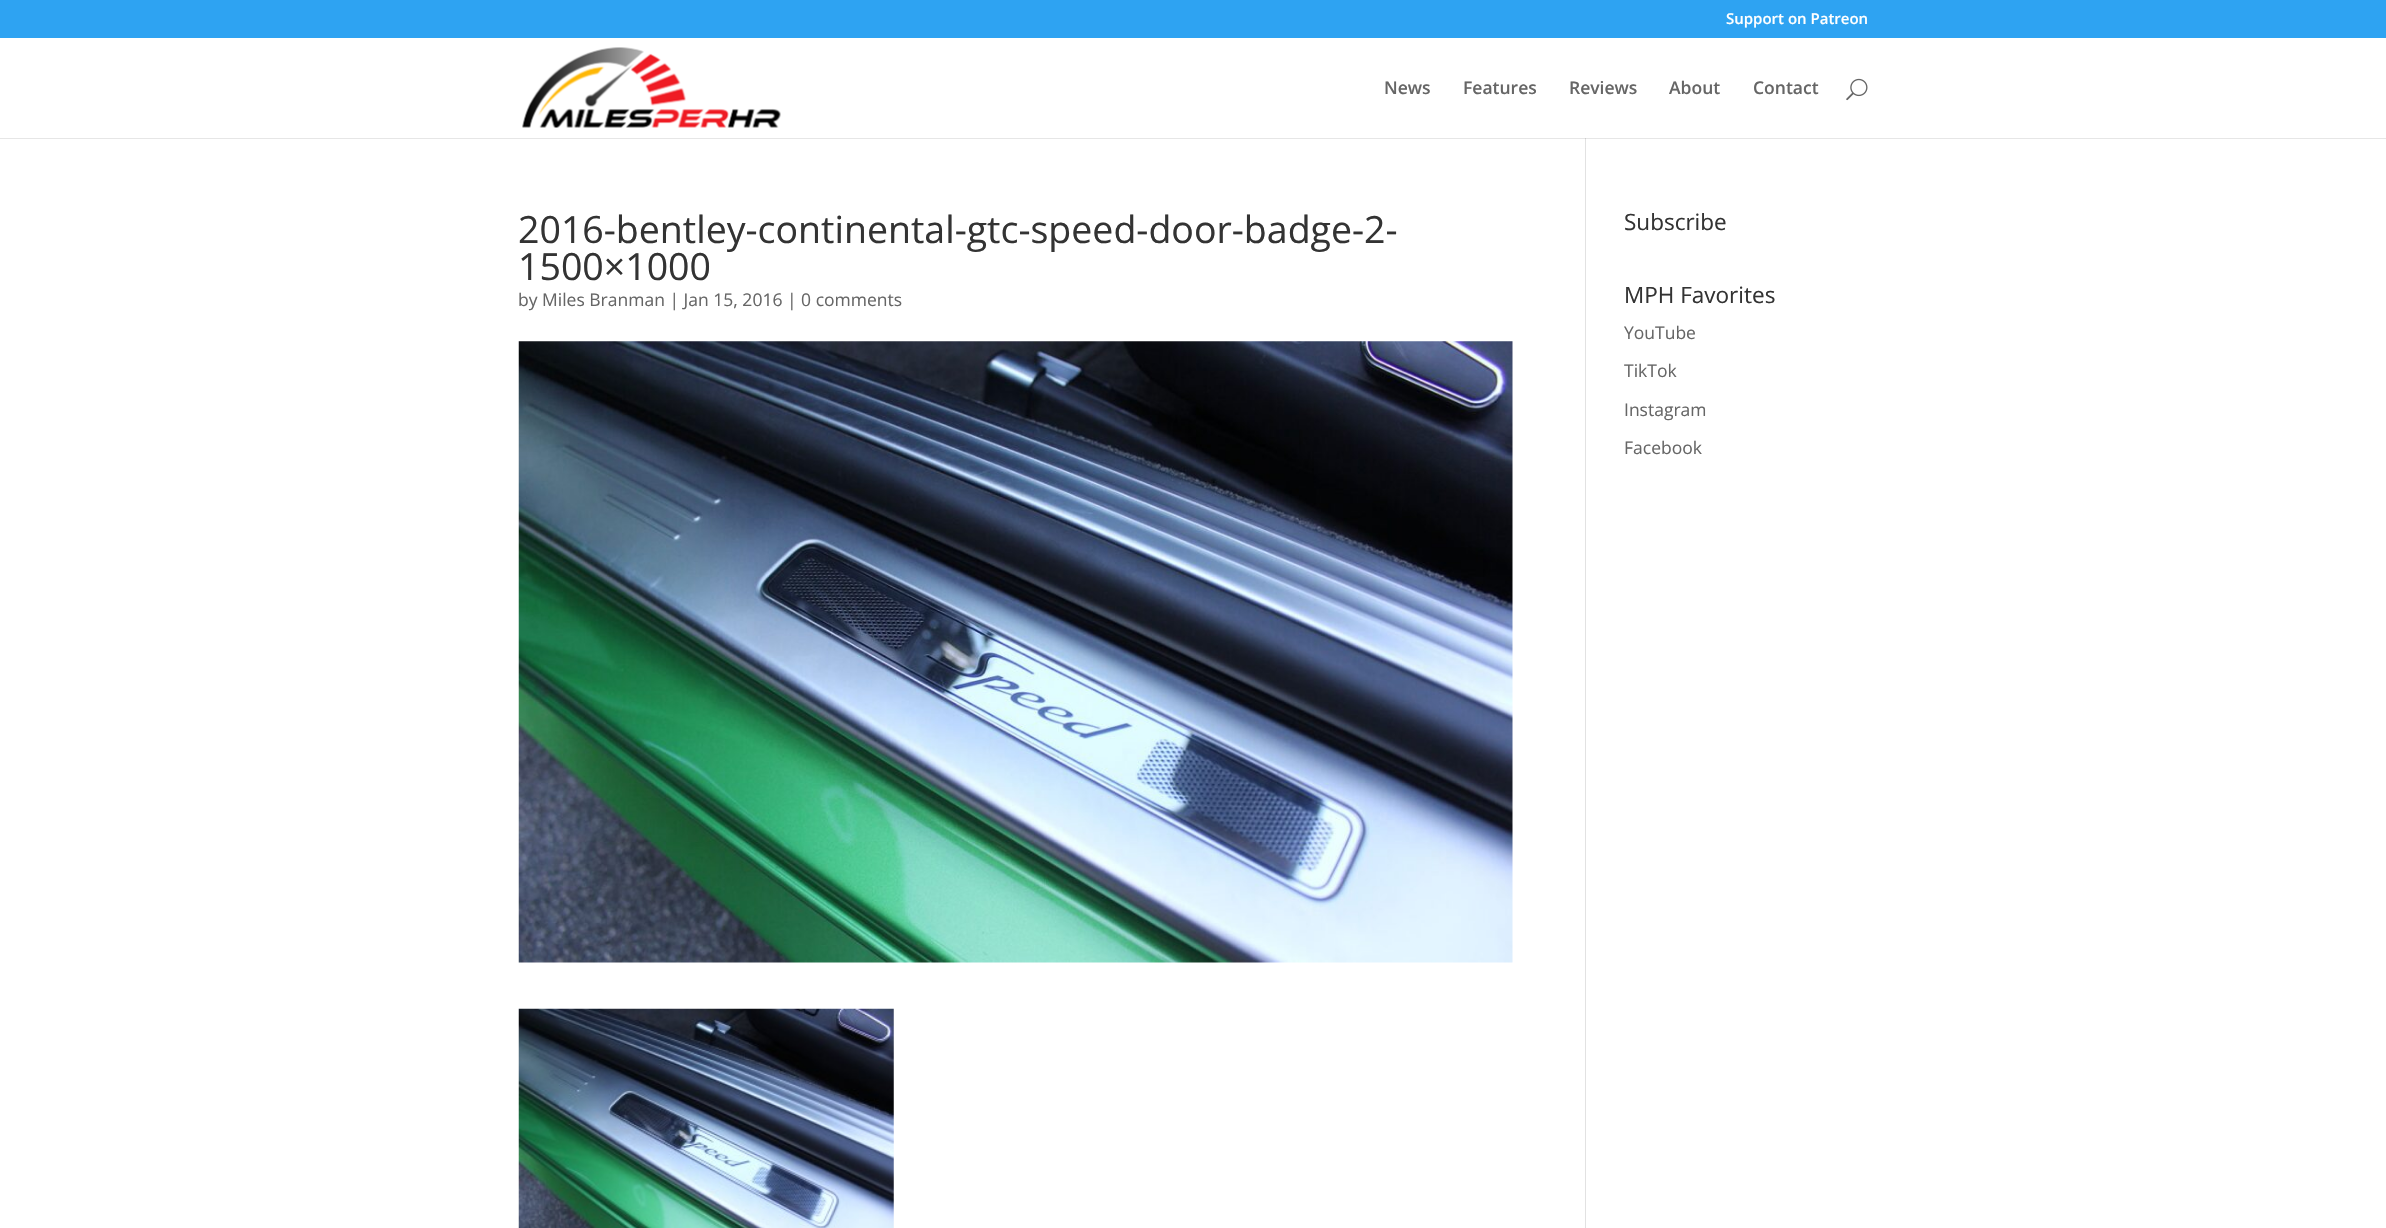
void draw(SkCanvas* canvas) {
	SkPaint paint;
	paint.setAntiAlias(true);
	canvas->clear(0xffffffff);
	paint.setColor(0xffe6e6e6);
	canvas->drawRect(SkRect::MakeXYWH(0, 138, 2386, 1), paint);
	paint.setColor(0xff2ea3f2);
	canvas->drawRect(SkRect::MakeXYWH(0, 0, 2386, 38), paint);
	SkFont f1(fontMgr->matchFamilyStyle("Open Sans", SkFontStyle(600, SkFontStyle::kNormal_Width, SkFontStyle::kUpright_Slant)), 15);
	f1.setSubpixel(true);
	paint.setColor(0xffffffff);
	canvas->drawString("Support on Patreon", 1726, 24, f1, paint);
	canvas->drawImageRect(SkImages::DeferredFromEncodedData(SkData::MakeFromFileName("img1.png")), SkRect::MakeXYWH(522, 47, 259, 81), SkSamplingOptions());
	SkFont f2(fontMgr->matchFamilyStyle("Open Sans", SkFontStyle(600, SkFontStyle::kNormal_Width, SkFontStyle::kUpright_Slant)), 17.5);
	f2.setSubpixel(true);
	paint.setColor(0xff666666);
	canvas->drawString("News", 1384, 94, f2, paint);
	canvas->drawString("Features", 1463, 94, f2, paint);
	canvas->drawString("Reviews", 1569, 94, f2, paint);
	canvas->drawString("About", 1669, 94, f2, paint);
	canvas->drawString("Contact", 1753, 94, f2, paint);
	canvas->drawImageRect(SkImages::DeferredFromEncodedData(SkData::MakeFromFileName("img2.png")), SkRect::MakeXYWH(1846, 78, 22, 23), SkSamplingOptions());
	paint.setColor(0xffe2e2e2);
	canvas->drawRect(SkRect::MakeXYWH(1585, 138, 1, 1090), paint);
	paint.setColor(0xffcbcbcb);
	canvas->drawRect(SkRect::MakeXYWH(1585, 138, 1, 1), paint);
	SkFont f3(fontMgr->matchFamilyStyle("Open Sans", SkFontStyle::Normal()), 37.5);
	f3.setSubpixel(true);
	paint.setColor(0xff333333);
	canvas->drawString("2016-bentley-continental-gtc-speed-door-badge-2-", 518, 243, f3, paint);
	canvas->drawString("1500×1000", 518, 280, f3, paint);
	SkFont f4(fontMgr->matchFamilyStyle("Open Sans", SkFontStyle::Normal()), 17.5);
	f4.setSubpixel(true);
	paint.setColor(0xff666666);
	canvas->drawString("by Miles Branman | Jan 15, 2016 | 0 comments", 518, 306, f4, paint);
	canvas->drawImageRect(SkImages::DeferredFromEncodedData(SkData::MakeFromFileName("img3.png")), SkRect::MakeXYWH(518, 341, 995, 622), SkSamplingOptions());
	canvas->drawImageRect(SkImages::DeferredFromEncodedData(SkData::MakeFromFileName("img4.png")), SkRect::MakeXYWH(518, 1008, 376, 220), SkSamplingOptions());
	SkFont f5(fontMgr->matchFamilyStyle("Open Sans", SkFontStyle::Normal()), 22.5);
	f5.setSubpixel(true);
	paint.setColor(0xff333333);
	canvas->drawString("Subscribe", 1624, 230, f5, paint);
	canvas->drawString("MPH Favorites", 1624, 303, f5, paint);
	paint.setColor(0xff666666);
	canvas->drawString("YouTube", 1624, 339, f4, paint);
	canvas->drawString("TikTok", 1624, 377, f4, paint);
	canvas->drawString("Instagram", 1624, 416, f4, paint);
	canvas->drawString("Facebook", 1624, 454, f4, paint);
}
